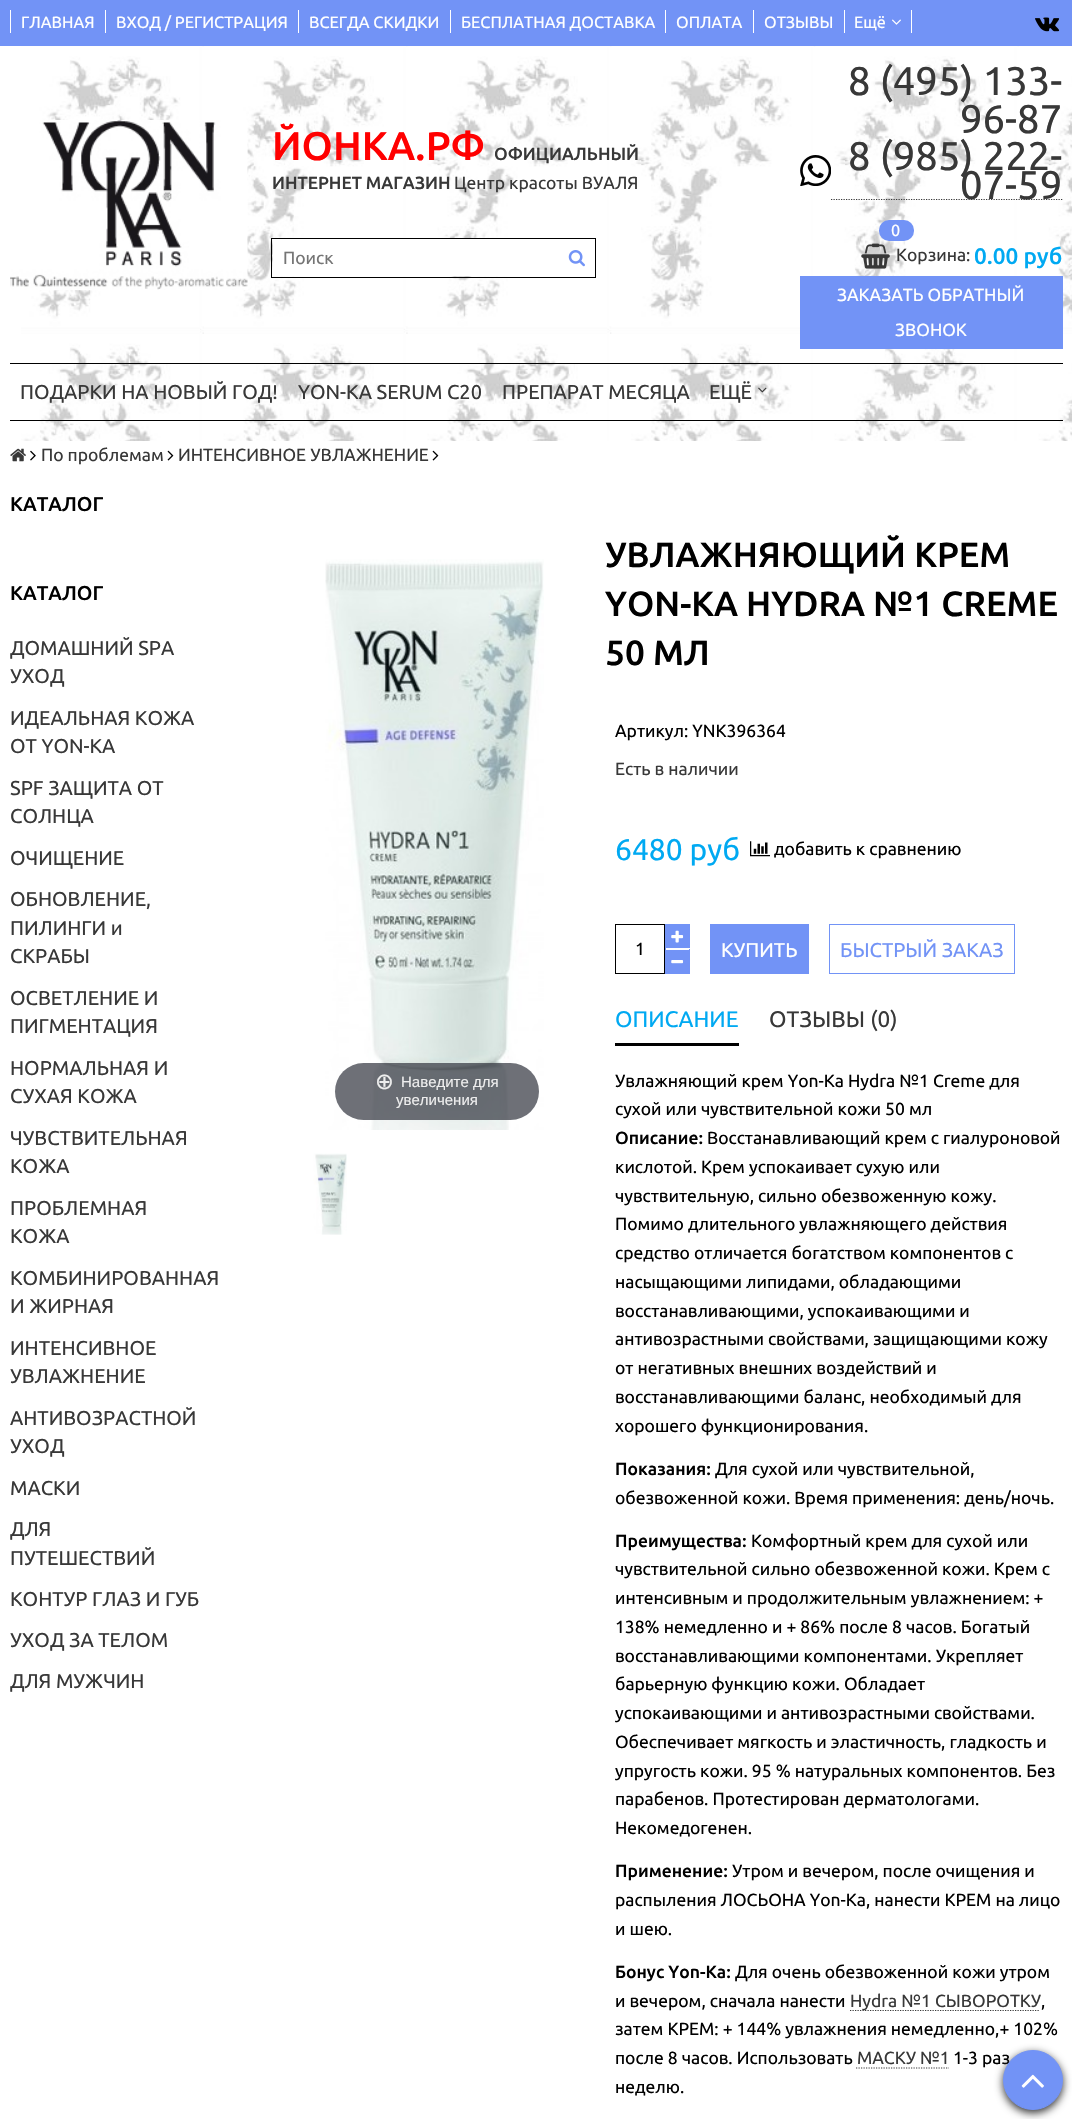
void draw(SkCanvas* canvas) {
	SkPaint paint;
	paint.setAntiAlias(true);
	auto svgPath = [&](const char* data, bool evenOdd = false) {
		SkPath result = *SkParsePath::FromSVGString(data);
		if (evenOdd) result.setFillType(SkPathFillType::kEvenOdd);
		return result;
	};
	canvas->clear(0xffffffff);
	paint.setColor(0xff7293f6);
	canvas->drawRect(SkRect::MakeXYWH(0, 0, 1072, 46), paint);
	paint.setColor(0xffffffff);
	canvas->drawRect(SkRect::MakeXYWH(10, 10, 1, 23), paint);
	SkFont f1(fontMgr->matchFamilyStyle("Ubuntu", SkFontStyle::Normal()), 16.25);
	f1.setSubpixel(true);
	canvas->drawString("ГЛАВНАЯ", 21, 28, f1, paint);
	canvas->drawRect(SkRect::MakeXYWH(105, 10, 1, 23), paint);
	canvas->drawString("ВХОД / РЕГИСТРАЦИЯ", 116, 28, f1, paint);
	canvas->drawRect(SkRect::MakeXYWH(298, 10, 1, 23), paint);
	canvas->drawString("ВСЕГДА СКИДКИ", 309, 28, f1, paint);
	canvas->drawRect(SkRect::MakeXYWH(450, 10, 1, 23), paint);
	canvas->drawString("БЕСПЛАТНАЯ ДОСТАВКА", 461, 28, f1, paint);
	canvas->drawRect(SkRect::MakeXYWH(665, 10, 1, 23), paint);
	canvas->drawString("ОПЛАТА", 676, 28, f1, paint);
	canvas->drawRect(SkRect::MakeXYWH(753, 10, 1, 23), paint);
	canvas->drawString("ОТЗЫВЫ", 764, 28, f1, paint);
	canvas->drawRect(SkRect::MakeXYWH(911, 10, 1, 23), paint);
	canvas->drawRect(SkRect::MakeXYWH(844, 10, 1, 23), paint);
	canvas->drawString("Ещё", 854, 28, f1, paint);
	canvas->drawImageRect(SkImages::DeferredFromEncodedData(SkData::MakeFromFileName("img1.png")), SkRect::MakeXYWH(892, 19, 9, 6), SkSamplingOptions());
	canvas->drawImageRect(SkImages::DeferredFromEncodedData(SkData::MakeFromFileName("img2.png")), SkRect::MakeXYWH(1035, 17, 25, 15), SkSamplingOptions());
	canvas->drawImageRect(SkImages::DeferredFromEncodedData(SkData::MakeFromFileName("img3.png")), SkRect::MakeXYWH(21, 46, 1051, 395), SkSamplingOptions());
	canvas->drawImageRect(SkImages::DeferredFromEncodedData(SkData::MakeFromFileName("img4.png")), SkRect::MakeXYWH(10, 120, 238, 170), SkSamplingOptions());
	SkFont f2(fontMgr->matchFamilyStyle("Ubuntu", SkFontStyle(500, SkFontStyle::kNormal_Width, SkFontStyle::kUpright_Slant)), 40);
	f2.setSubpixel(true);
	paint.setColor(0xffff0000);
	canvas->drawString("ЙОНКА.РФ", 272, 160, f2, paint);
	SkFont f3(fontMgr->matchFamilyStyle("Ubuntu", SkFontStyle(500, SkFontStyle::kNormal_Width, SkFontStyle::kUpright_Slant)), 17.5);
	f3.setSubpixel(true);
	paint.setColor(0xff383838);
	canvas->drawString("ОФИЦИАЛЬНЫЙ", 494, 160, f3, paint);
	canvas->drawString("ИНТЕРНЕТ МАГАЗИН", 272, 189, f3, paint);
	SkFont f4(fontMgr->matchFamilyStyle("Ubuntu", SkFontStyle::Normal()), 17.5);
	f4.setSubpixel(true);
	canvas->drawString("Центр красоты ВУАЛЯ", 454, 189, f4, paint);
	paint.setStroke(true);
	paint.setStrokeWidth(1);
	paint.setColor(0xff000000);
	canvas->drawRect(SkRect::MakeXYWH(271.5, 238.5, 324, 39), paint);
	paint.setStroke(false);
	paint.setColor(0xffffffff);
	canvas->drawRect(SkRect::MakeXYWH(273, 239, 225, 37), paint);
	paint.setColor(0xff757575);
	canvas->drawString("Поиск", 283, 264, f4, paint);
	canvas->drawImageRect(SkImages::DeferredFromEncodedData(SkData::MakeFromFileName("img5.png")), SkRect::MakeXYWH(568, 250, 17, 17), SkSamplingOptions());
	SkFont f5(fontMgr->matchFamilyStyle("Ubuntu", SkFontStyle::Normal()), 40);
	f5.setSubpixel(true);
	paint.setColor(0xff383838);
	canvas->drawString("8 (495) 133-", 848, 95, f5, paint);
	canvas->drawString("96-87", 960, 133, f5, paint);
	canvas->drawImageRect(SkImages::DeferredFromEncodedData(SkData::MakeFromFileName("img6.png")), SkRect::MakeXYWH(800, 155, 31, 31), SkSamplingOptions());
	paint.setStroke(true);
	paint.setStrokeWidth(1.2);
	paint.setPathEffect(SkDashPathEffect::Make({{1.25f, 1.25f}}, 0));
	canvas->drawPath(svgPath("M831 199.5H1062.5"), paint);
	paint.setPathEffect(nullptr);
	paint.setStroke(false);
	canvas->drawString("8 (985) 222-", 848, 170, f5, paint);
	canvas->drawString("07-59", 960, 199, f5, paint);
	paint.setColor(0xff7293f6);
	canvas->drawRoundRect(SkRect::MakeXYWH(879, 220, 35, 21), 10, 10, paint);
	paint.setColor(0xffffffff);
	canvas->drawString("0", 891, 236, f1, paint);
	canvas->drawImageRect(SkImages::DeferredFromEncodedData(SkData::MakeFromFileName("img7.png")), SkRect::MakeXYWH(861, 243, 29, 26), SkSamplingOptions());
	paint.setColor(0xff383838);
	canvas->drawString("Корзина:", 896, 261, f4, paint);
	SkFont f6(fontMgr->matchFamilyStyle("Ubuntu", SkFontStyle(500, SkFontStyle::kNormal_Width, SkFontStyle::kUpright_Slant)), 22.5);
	f6.setSubpixel(true);
	paint.setColor(0xff00a9f2);
	canvas->drawString("0.00 руб", 974, 264, f6, paint);
	paint.setColor(0xff7293f6);
	canvas->drawRect(SkRect::MakeXYWH(800, 276, 263, 73), paint);
	paint.setColor(0xffffffff);
	canvas->drawString("ЗАКАЗАТЬ ОБРАТНЫЙ", 837, 301, f4, paint);
	canvas->drawString("ЗВОНОК", 895, 336, f4, paint);
	paint.setColor(0xff000000);
	canvas->drawRect(SkRect::MakeXYWH(10, 363, 1053, 1), paint);
	canvas->drawRect(SkRect::MakeXYWH(10, 420, 1053, 1), paint);
	SkFont f7(fontMgr->matchFamilyStyle("Ubuntu", SkFontStyle::Normal()), 20);
	f7.setSubpixel(true);
	paint.setColor(0xff383838);
	canvas->drawString("ПОДАРКИ НА НОВЫЙ ГОД!", 20, 399, f7, paint);
	canvas->drawString("YON-KA SERUM C20", 298, 399, f7, paint);
	canvas->drawString("ПРЕПАРАТ МЕСЯЦА", 502, 399, f7, paint);
	canvas->drawString("ЕЩЁ", 709, 399, f7, paint);
	canvas->drawImageRect(SkImages::DeferredFromEncodedData(SkData::MakeFromFileName("img8.png")), SkRect::MakeXYWH(758, 387, 9, 6), SkSamplingOptions());
	canvas->drawImageRect(SkImages::DeferredFromEncodedData(SkData::MakeFromFileName("img9.png")), SkRect::MakeXYWH(10, 448, 16, 14), SkSamplingOptions());
	canvas->drawImageRect(SkImages::DeferredFromEncodedData(SkData::MakeFromFileName("img10.png")), SkRect::MakeXYWH(30, 450, 6, 11), SkSamplingOptions());
	canvas->drawString("По проблемам", 41, 461, f4, paint);
	canvas->drawImageRect(SkImages::DeferredFromEncodedData(SkData::MakeFromFileName("img11.png")), SkRect::MakeXYWH(167, 450, 7, 11), SkSamplingOptions());
	canvas->drawString("ИНТЕНСИВНОЕ УВЛАЖНЕНИЕ", 178, 461, f4, paint);
	canvas->drawImageRect(SkImages::DeferredFromEncodedData(SkData::MakeFromFileName("img11.png")), SkRect::MakeXYWH(432, 450, 7, 11), SkSamplingOptions());
	SkFont f8(fontMgr->matchFamilyStyle("Ubuntu", SkFontStyle(500, SkFontStyle::kNormal_Width, SkFontStyle::kUpright_Slant)), 20);
	f8.setSubpixel(true);
	paint.setColor(0xff000000);
	canvas->drawString("КАТАЛОГ", 10, 511, f8, paint);
	canvas->drawString("КАТАЛОГ", 10, 600, f8, paint);
	paint.setColor(0xff383838);
	canvas->drawString("ДОМАШНИЙ SPA", 10, 655, f7, paint);
	canvas->drawString("УХОД", 10, 683, f7, paint);
	canvas->drawString("ИДЕАЛЬНАЯ КОЖА", 10, 725, f7, paint);
	canvas->drawString("ОТ YON-KA", 10, 753, f7, paint);
	canvas->drawString("SPF ЗАЩИТА ОТ", 10, 795, f7, paint);
	canvas->drawString("СОЛНЦА", 10, 823, f7, paint);
	canvas->drawString("ОЧИЩЕНИЕ", 10, 865, f7, paint);
	canvas->drawString("ОБНОВЛЕНИЕ,", 10, 906, f7, paint);
	canvas->drawString("ПИЛИНГИ и", 10, 935, f7, paint);
	canvas->drawString("СКРАБЫ", 10, 963, f7, paint);
	canvas->drawString("ОСВЕТЛЕНИЕ И", 10, 1005, f7, paint);
	canvas->drawString("ПИГМЕНТАЦИЯ", 10, 1033, f7, paint);
	canvas->drawString("НОРМАЛЬНАЯ И", 10, 1075, f7, paint);
	canvas->drawString("СУХАЯ КОЖА", 10, 1103, f7, paint);
	canvas->drawString("ЧУВСТВИТЕЛЬНАЯ", 10, 1145, f7, paint);
	canvas->drawString("КОЖА", 10, 1173, f7, paint);
	canvas->drawString("ПРОБЛЕМНАЯ", 10, 1215, f7, paint);
	canvas->drawString("КОЖА", 10, 1243, f7, paint);
	canvas->drawString("КОМБИНИРОВАННАЯ", 10, 1285, f7, paint);
	canvas->drawString("И ЖИРНАЯ", 10, 1313, f7, paint);
	canvas->drawString("ИНТЕНСИВНОЕ", 10, 1355, f7, paint);
	canvas->drawString("УВЛАЖНЕНИЕ", 10, 1383, f7, paint);
	canvas->drawString("АНТИВОЗРАСТНОЙ", 10, 1425, f7, paint);
	canvas->drawString("УХОД", 10, 1453, f7, paint);
	canvas->drawString("МАСКИ", 10, 1495, f7, paint);
	canvas->drawString("ДЛЯ", 10, 1536, f7, paint);
	canvas->drawString("ПУТЕШЕСТВИЙ", 10, 1565, f7, paint);
	canvas->drawString("КОНТУР ГЛАЗ И ГУБ", 10, 1606, f7, paint);
	canvas->drawString("УХОД ЗА ТЕЛОМ", 10, 1647, f7, paint);
	canvas->drawString("ДЛЯ МУЖЧИН", 10, 1688, f7, paint);
	SkFont f9(fontMgr->matchFamilyStyle("Ubuntu", SkFontStyle(500, SkFontStyle::kNormal_Width, SkFontStyle::kUpright_Slant)), 35);
	f9.setSubpixel(true);
	paint.setColor(0xff000000);
	canvas->drawString("УВЛАЖНЯЮЩИЙ КРЕМ", 605, 567, f9, paint);
	canvas->drawString("YON-KA HYDRA №1 CREME", 605, 616, f9, paint);
	canvas->drawString("50 МЛ", 605, 665, f9, paint);
	canvas->drawString("Артикул: YNK396364", 615, 737, f4, paint);
	paint.setColor(0xff383838);
	canvas->drawString("Есть в наличии", 615, 775, f4, paint);
	SkFont f10(fontMgr->matchFamilyStyle("Ubuntu", SkFontStyle::Normal()), 30);
	f10.setSubpixel(true);
	paint.setColor(0xff00a9f2);
	canvas->drawString("6480 руб", 615, 860, f10, paint);
	canvas->drawImageRect(SkImages::DeferredFromEncodedData(SkData::MakeFromFileName("img12.png")), SkRect::MakeXYWH(750, 841, 20, 16), SkSamplingOptions());
	paint.setColor(0xff000000);
	canvas->drawString("добавить к сравнению", 774, 855, f4, paint);
	paint.setColor(0xff7293f6);
	canvas->drawRect(SkRect::MakeXYWH(666, 950, 23, 24), paint);
	canvas->drawRect(SkRect::MakeXYWH(689, 949, 1, 25), paint);
	canvas->drawRect(SkRect::MakeXYWH(665, 924, 1, 50), paint);
	canvas->drawImageRect(SkImages::DeferredFromEncodedData(SkData::MakeFromFileName("img13.png")), SkRect::MakeXYWH(671, 960, 13, 4), SkSamplingOptions());
	paint.setStroke(true);
	paint.setStrokeWidth(1);
	paint.setColor(0xff000000);
	canvas->drawRect(SkRect::MakeXYWH(615.5, 924.5, 49, 49), paint);
	paint.setStroke(false);
	canvas->drawString("1", 635, 955, f4, paint);
	paint.setColor(0xff7293f6);
	canvas->drawRect(SkRect::MakeXYWH(666, 924, 24, 24), paint);
	canvas->drawImageRect(SkImages::DeferredFromEncodedData(SkData::MakeFromFileName("img14.png")), SkRect::MakeXYWH(671, 930, 13, 13), SkSamplingOptions());
	canvas->drawRect(SkRect::MakeXYWH(710, 924, 99, 50), paint);
	paint.setColor(0xffffffff);
	canvas->drawString("КУПИТЬ", 721, 957, f7, paint);
	paint.setStroke(true);
	paint.setColor(0xff7293f6);
	canvas->drawRect(SkRect::MakeXYWH(829.5, 924.5, 185, 49), paint);
	paint.setStroke(false);
	canvas->drawString("БЫСТРЫЙ ЗАКАЗ", 840, 957, f7, paint);
	canvas->drawImageRect(SkImages::DeferredFromEncodedData(SkData::MakeFromFileName("img15.png")), SkRect::MakeXYWH(325, 559, 219, 571), SkSamplingOptions());
	paint.setColor(0xb331333d);
	canvas->drawRoundRect(SkRect::MakeXYWH(335, 1063, 204, 57), 28.5, 28.5, paint);
	SkFont f11(fontMgr->matchFamilyStyle("DejaVu Sans", SkFontStyle::Normal()), 22.5);
	f11.setSubpixel(true);
	paint.setColor(0xffeeeeee);
	canvas->drawString("⊕", 375, 1089, f11, paint);
	SkFont f12(fontMgr->matchFamilyStyle("Liberation Sans", SkFontStyle::Normal()), 15);
	f12.setSubpixel(true);
	canvas->drawString("Наведите для", 401, 1087, f12, paint);
	canvas->drawString("увеличения", 396, 1105, f12, paint);
	canvas->drawImageRect(SkImages::DeferredFromEncodedData(SkData::MakeFromFileName("img16.png")), SkRect::MakeXYWH(313, 1153, 34, 82), SkSamplingOptions());
	paint.setColor(0xff000000);
	canvas->drawRect(SkRect::MakeXYWH(615, 1043, 124, 3), paint);
	SkFont f13(fontMgr->matchFamilyStyle("Ubuntu", SkFontStyle::Normal()), 22.5);
	f13.setSubpixel(true);
	paint.setColor(0xff00a9f2);
	canvas->drawString("ОПИСАНИЕ", 615, 1027, f13, paint);
	paint.setColor(0xff383838);
	canvas->drawString("ОТЗЫВЫ (0)", 769, 1027, f13, paint);
	paint.setColor(0xff000000);
	canvas->drawString("Увлажняющий крем Yon-Ka Hydra №1 Creme для", 615, 1087, f4, paint);
	canvas->drawString("сухой или чувствительной кожи 50 мл", 615, 1115, f4, paint);
	canvas->drawString("Описание:", 615, 1144, f3, paint);
	canvas->drawString("Восстанавливающий крем с гиалуроновой", 707, 1144, f4, paint);
	canvas->drawString("кислотой. Крем успокаивает сухую или", 615, 1173, f4, paint);
	canvas->drawString("чувствительную, сильно обезвоженную кожу.", 615, 1202, f4, paint);
	canvas->drawString("Помимо длительного увлажняющего действия", 615, 1230, f4, paint);
	canvas->drawString("средство отличается богатством компонентов с", 615, 1259, f4, paint);
	canvas->drawString("насыщающими липидами, обладающими", 615, 1288, f4, paint);
	canvas->drawString("восстанавливающими, успокаивающими и", 615, 1317, f4, paint);
	canvas->drawString("антивозрастными свойствами, защищающими кожу", 615, 1345, f4, paint);
	canvas->drawString("от негативных внешних воздействий и", 615, 1374, f4, paint);
	canvas->drawString("восстанавливающими баланс, необходимый для", 615, 1403, f4, paint);
	canvas->drawString("хорошего функционирования.", 615, 1432, f4, paint);
	canvas->drawString("Показания:", 615, 1475, f3, paint);
	canvas->drawString("Для сухой или чувствительной,", 715, 1475, f4, paint);
	canvas->drawString("обезвоженной кожи. Время применения: день/ночь.", 615, 1504, f4, paint);
	canvas->drawString("Преимущества:", 615, 1547, f3, paint);
	canvas->drawString("Комфортный крем для сухой или", 751, 1547, f4, paint);
	canvas->drawString("чувствительной сильно обезвоженной кожи. Крем с", 615, 1575, f4, paint);
	canvas->drawString("интенсивным и продолжительным увлажнением: +", 615, 1604, f4, paint);
	canvas->drawString("138% немедленно и + 86% после 8 часов. Богатый", 615, 1633, f4, paint);
	canvas->drawString("восстанавливающими компонентами. Укрепляет", 615, 1662, f4, paint);
	canvas->drawString("барьерную функцию кожи. Обладает", 615, 1690, f4, paint);
	canvas->drawString("успокаивающими и антивозраcтными свойствами.", 615, 1719, f4, paint);
	canvas->drawString("Обеспечивает мягкость и эластичность, гладкость и", 615, 1748, f4, paint);
	canvas->drawString("упругость кожи. 95 % натуральных компонентов. Без", 615, 1777, f4, paint);
	canvas->drawString("парабенов. Протестирован дерматологами.", 615, 1805, f4, paint);
	canvas->drawString("Некомедогенен.", 615, 1834, f4, paint);
	canvas->drawString("Применение:", 615, 1877, f3, paint);
	canvas->drawString("Утром и вечером, после очищения и", 732, 1877, f4, paint);
	canvas->drawString("распыления ЛОСЬОНА Yon-Ka, нанести КРЕМ на лицо", 615, 1906, f4, paint);
	canvas->drawString("и шею.", 615, 1935, f4, paint);
	canvas->drawString("Бонус Yon-Ka:", 615, 1978, f3, paint);
	canvas->drawString("Для очень обезвоженной кожи утром", 735, 1978, f4, paint);
	canvas->drawString("и вечером, сначала нанести", 615, 2007, f4, paint);
	paint.setStroke(true);
	paint.setStrokeWidth(1.2);
	paint.setColor(0xff383838);
	paint.setPathEffect(SkDashPathEffect::Make({{1.25f, 1.25f}}, 0));
	canvas->drawPath(svgPath("M850 2010.5H1040"), paint);
	paint.setPathEffect(nullptr);
	paint.setStroke(false);
	canvas->drawString("Hydra №1 СЫВОРОТКУ", 850, 2007, f4, paint);
	paint.setColor(0xff000000);
	canvas->drawString(",", 1041, 2007, f4, paint);
	canvas->drawString("затем КРЕМ: + 144% увлажнения немедленно,+ 102%", 615, 2035, f4, paint);
	canvas->drawString("после 8 часов. Использовать", 615, 2064, f4, paint);
	paint.setColor(0xff383838);
	canvas->drawString("МАСКУ №1", 857, 2064, f4, paint);
	paint.setStroke(true);
	paint.setPathEffect(SkDashPathEffect::Make({{1.25f, 1.25f}}, 0));
	canvas->drawPath(svgPath("M856 2068H949"), paint);
	paint.setPathEffect(nullptr);
	paint.setStroke(false);
	paint.setColor(0xff000000);
	canvas->drawString("1-3 раз", 953, 2064, f4, paint);
	canvas->drawString("неделю.", 615, 2093, f4, paint);
	paint.setColor(0xff333333);
	paint.setMaskFilter(SkMaskFilter::MakeBlur(kNormal_SkBlurStyle, 4));
	canvas->drawRoundRect(SkRect::MakeXYWH(1003, 2053, 60, 60), 30, 30, paint);
	paint.setMaskFilter(nullptr);
	paint.setColor(0xff7293f6);
	canvas->drawCircle(1033, 2080, 29.5, paint);
	paint.setStroke(true);
	paint.setStrokeWidth(1);
	canvas->drawCircle(1033, 2080, 29.5, paint);
	canvas->drawImageRect(SkImages::DeferredFromEncodedData(SkData::MakeFromFileName("img17.png")), SkRect::MakeXYWH(1021, 2074, 23, 14), SkSamplingOptions());
}
